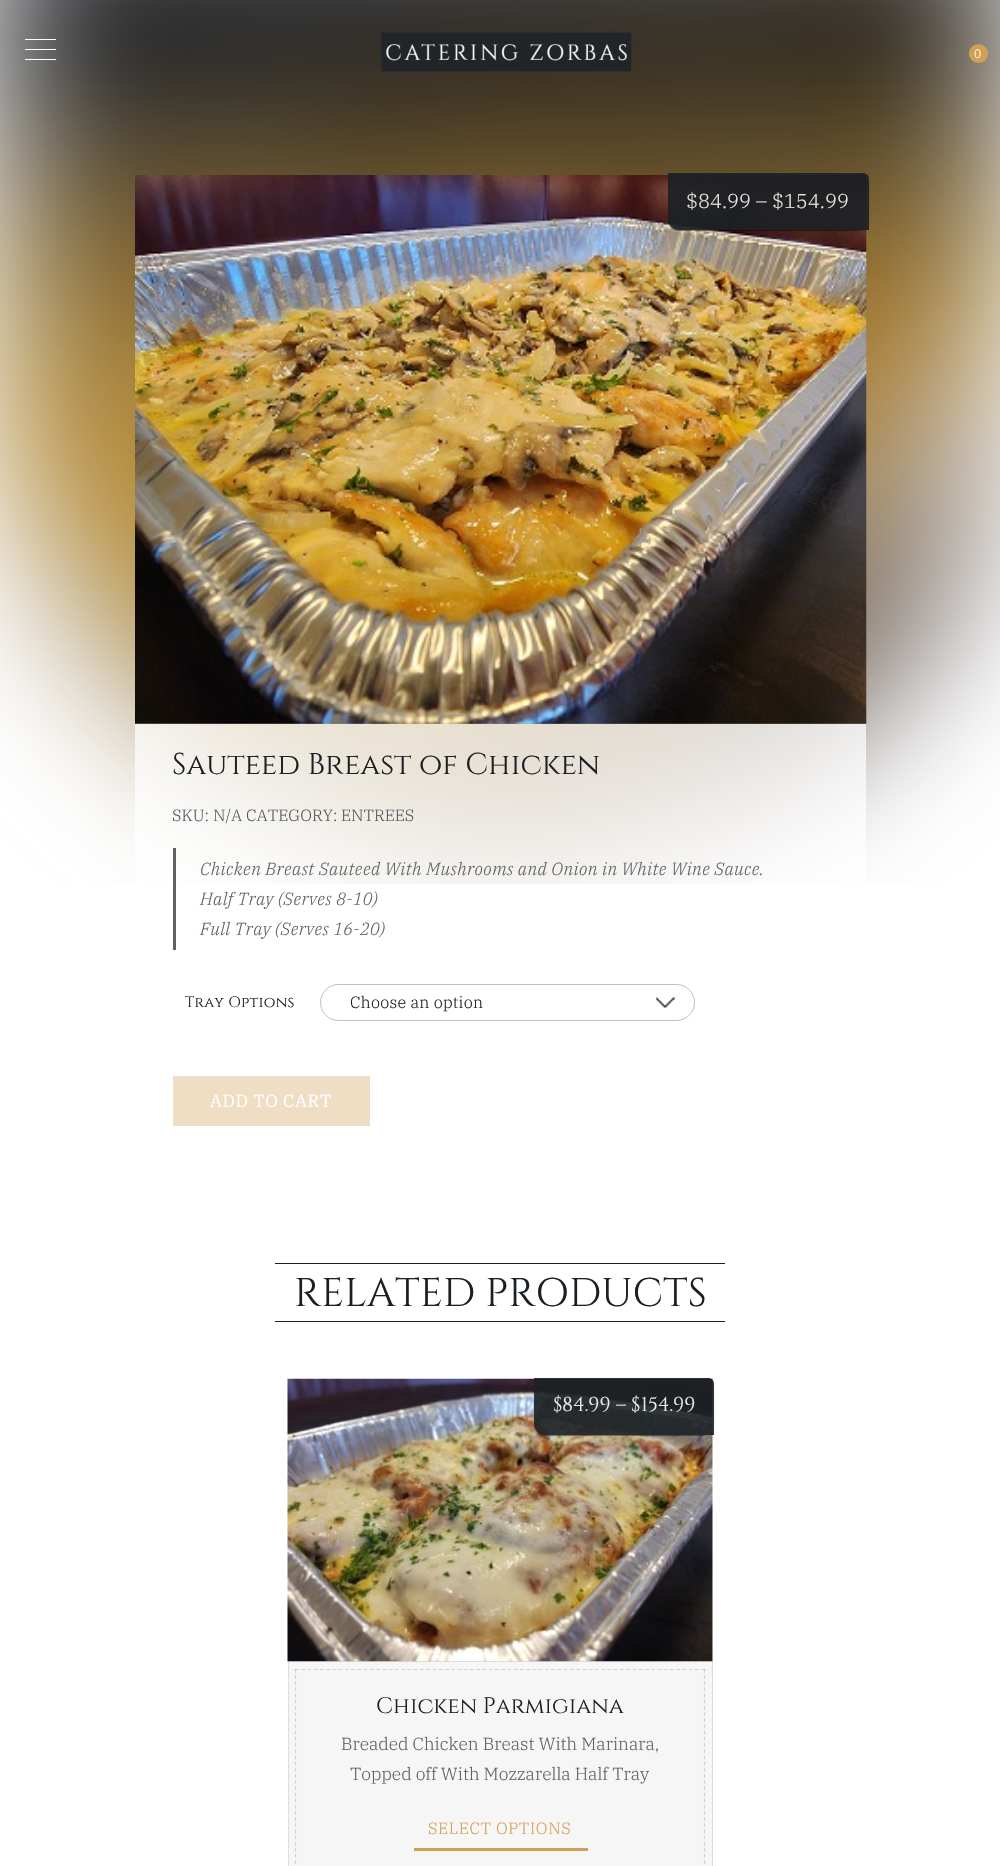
void draw(SkCanvas* canvas) {
	SkPaint paint;
	paint.setAntiAlias(true);
	auto spacedText = [&](const char* s, float x, float y, const SkFont& font, const SkPaint& ink, float letter, float word) {
		std::vector<SkGlyphID> glyphs(font.countText(s, strlen(s), SkTextEncoding::kUTF8));
		std::vector<float> xs(glyphs.size());
		font.textToGlyphs(s, strlen(s), SkTextEncoding::kUTF8, glyphs);
		font.getXPos(glyphs, xs, x);
		float extra = 0;
		for (size_t i = 0; i < glyphs.size(); i++) {
			xs[i] += extra;
			extra += letter + word * (glyphs[i] == font.unicharToGlyph(' '));
		}
		canvas->drawTextBlob(SkTextBlob::MakeFromPosHGlyphs(glyphs, xs, y, font), 0, 0, ink);
	};
	auto svgPath = [&](const char* data, bool evenOdd = false) {
		SkPath result = *SkParsePath::FromSVGString(data);
		if (evenOdd) result.setFillType(SkPathFillType::kEvenOdd);
		return result;
	};
	canvas->clear(0xffffffff);
	canvas->drawImageRect(SkImages::DeferredFromEncodedData(SkData::MakeFromFileName("img2.png")), SkRect::MakeXYWH(0, 0, 1000, 884), SkSamplingOptions());
	paint.setColor(0xffffffff);
	canvas->drawRect(SkRect::MakeXYWH(25, 39, 31, 1), paint);
	canvas->drawRect(SkRect::MakeXYWH(25, 49, 31, 1), paint);
	canvas->drawRect(SkRect::MakeXYWH(25, 59, 31, 1), paint);
	canvas->drawImageRect(SkImages::DeferredFromEncodedData(SkData::MakeFromFileName("img1.png")), SkRect::MakeXYWH(381, 32, 251, 40), SkSamplingOptions());
	paint.setColor(0xffd1a054);
	canvas->drawCircle(978.5, 53.5, 9.5, paint);
	SkFont f1(fontMgr->matchFamilyStyle("IBM Plex Serif", SkFontStyle(300, SkFontStyle::kNormal_Width, SkFontStyle::kUpright_Slant)), 12);
	f1.setSubpixel(true);
	paint.setColor(0xffffffff);
	canvas->drawString("0", 974, 58, f1, paint);
	canvas->drawImageRect(SkImages::DeferredFromEncodedData(SkData::MakeFromFileName("img3.png")), SkRect::MakeXYWH(135, 175, 732, 549), SkSamplingOptions());
	canvas->save();
	canvas->clipPath(svgPath("M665 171H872V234H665ZM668 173H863C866.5 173 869 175.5 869 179V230H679C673 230 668 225 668 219Z", true), true);
	paint.setColor(0x73000000);
	paint.setMaskFilter(SkMaskFilter::MakeBlur(kNormal_SkBlurStyle, 0.5));
	canvas->drawRoundRect(SkRect::MakeXYWH(668, 174, 201, 57), 11, 11, paint);
	paint.setMaskFilter(nullptr);
	canvas->restore();
	paint.setColor(0xe61b2024);
	canvas->drawPath(svgPath("M668 173H863C866.5 173 869 175.5 869 179V230H679C673 230 668 225 668 219Z"), paint);
	SkFont f2(fontMgr->matchFamilyStyle("IBM Plex Serif", SkFontStyle(300, SkFontStyle::kNormal_Width, SkFontStyle::kUpright_Slant)), 20);
	f2.setSubpixel(true);
	paint.setColor(0xffe9e9e9);
	canvas->drawString("$84.99 – $154.99", 686, 208, f2, paint);
	paint.setColor(0xb3ffffff);
	canvas->drawRect(SkRect::MakeXYWH(135, 724, 731, 160), paint);
	SkFont f3(fontMgr->matchFamilyStyle("Cinzel", SkFontStyle::Normal()), 30);
	f3.setSubpixel(true);
	paint.setColor(0xff1b2024);
	canvas->drawString("Sauteed Breast of Chicken", 172, 774, f3, paint);
	SkFont f4(fontMgr->matchFamilyStyle("IBM Plex Serif", SkFontStyle(300, SkFontStyle::kNormal_Width, SkFontStyle::kUpright_Slant)), 16.25);
	f4.setSubpixel(true);
	paint.setColor(0xff535659);
	canvas->drawString("SKU:", 172, 821, f4, paint);
	canvas->drawString("N/A", 213, 821, f4, paint);
	canvas->drawString("CATEGORY:", 246, 821, f4, paint);
	canvas->drawString("ENTREES", 341, 821, f4, paint);
	paint.setColor(0xb31b2024);
	canvas->drawRect(SkRect::MakeXYWH(173, 848, 3, 102), paint);
	SkFont f5(fontMgr->matchFamilyStyle("IBM Plex Serif", SkFontStyle(300, SkFontStyle::kNormal_Width, SkFontStyle::kItalic_Slant)), 17.5);
	f5.setSubpixel(true);
	paint.setColor(0xff5d6062);
	spacedText("Chicken Breast Sauteed With Mushrooms and Onion in White Wine Sauce.", 200, 875, f5, paint, 0.38, 0);
	spacedText("Half Tray (Serves 8-10)", 200, 905, f5, paint, 0.38, 0);
	spacedText("Full Tray (Serves 16-20)", 200, 935, f5, paint, 0.38, 0);
	SkFont f6(fontMgr->matchFamilyStyle("Cinzel", SkFontStyle::Normal()), 15);
	f6.setSubpixel(true);
	paint.setColor(0xff1b2024);
	spacedText("Tray Options", 185, 1007, f6, paint, 0.25, 0);
	canvas->drawImageRect(SkImages::DeferredFromEncodedData(SkData::MakeFromFileName("img4.png")), SkRect::MakeXYWH(656, 997, 20, 11), SkSamplingOptions());
	paint.setStroke(true);
	paint.setStrokeWidth(1);
	paint.setColor(0xffbfbfbf);
	canvas->drawRoundRect(SkRect::MakeXYWH(320.5, 984.5, 374, 36), 18, 18, paint);
	paint.setStroke(false);
	paint.setColor(0xff1b2024);
	spacedText("Choose an option", 350, 1008, f4, paint, 0.25, 0);
	paint.setColor(0xffefdec3);
	canvas->drawRect(SkRect::MakeXYWH(173, 1076, 197, 50), paint);
	SkFont f7(fontMgr->matchFamilyStyle("IBM Plex Serif", SkFontStyle::Normal()), 17.5);
	f7.setSubpixel(true);
	paint.setColor(0xffffffff);
	spacedText("ADD TO CART", 210, 1107, f7, paint, 0.6, 0);
	paint.setColor(0xff1b2024);
	canvas->drawRect(SkRect::MakeXYWH(275, 1263, 450, 1), paint);
	canvas->drawRect(SkRect::MakeXYWH(275, 1321, 450, 1), paint);
	SkFont f8(fontMgr->matchFamilyStyle("Cinzel", SkFontStyle::Normal()), 40);
	f8.setSubpixel(true);
	canvas->drawString("RELATED PRODUCTS", 294, 1306, f8, paint);
	canvas->drawImageRect(SkImages::DeferredFromEncodedData(SkData::MakeFromFileName("img5.png")), SkRect::MakeXYWH(287, 1378, 426, 284), SkSamplingOptions());
	canvas->save();
	canvas->clipPath(svgPath("M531 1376H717V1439H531ZM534 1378H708C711.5 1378 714 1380.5 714 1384V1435H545C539 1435 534 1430 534 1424Z", true), true);
	paint.setColor(0x73000000);
	paint.setMaskFilter(SkMaskFilter::MakeBlur(kNormal_SkBlurStyle, 0.5));
	canvas->drawRoundRect(SkRect::MakeXYWH(534, 1379, 180, 57), 11, 11, paint);
	paint.setMaskFilter(nullptr);
	canvas->restore();
	paint.setColor(0xe61b2024);
	canvas->drawPath(svgPath("M534 1378H708C711.5 1378 714 1380.5 714 1384V1435H545C539 1435 534 1430 534 1424Z"), paint);
	SkFont f9(fontMgr->matchFamilyStyle("Cinzel", SkFontStyle::Normal()), 20);
	f9.setSubpixel(true);
	paint.setColor(0xffe9e9e9);
	canvas->drawString("$", 553, 1411, f9, paint);
	canvas->drawString("84.99", 562, 1411, f9, paint);
	canvas->drawString("–", 616, 1411, f9, paint);
	canvas->drawString("$", 631, 1411, f9, paint);
	canvas->drawString("154.99", 641, 1411, f9, paint);
	paint.setColor(0x127f7f7f);
	canvas->drawRect(SkRect::MakeXYWH(288, 1661, 425, 205), paint);
	paint.setStroke(true);
	paint.setColor(0x337f7f7f);
	canvas->drawRect(SkRect::MakeXYWH(288.5, 1661.5, 424, 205), paint);
	paint.setStrokeWidth(1.2);
	paint.setColor(0xffd2d2d2);
	paint.setPathEffect(SkDashPathEffect::Make({{3.75f, 2.5f}}, 0));
	canvas->drawPath(svgPath("M295 1669.5H705"), paint);
	paint.setPathEffect(nullptr);
	paint.setColor(0x4d7f7f7f);
	paint.setPathEffect(SkDashPathEffect::Make({{3.75f, 2.42f}}, 0));
	canvas->drawPath(svgPath("M704.5 1669V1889"), paint);
	paint.setPathEffect(nullptr);
	paint.setPathEffect(SkDashPathEffect::Make({{3.75f, 2.42f}}, 0));
	canvas->drawPath(svgPath("M295.5 1669V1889"), paint);
	paint.setPathEffect(nullptr);
	SkFont f10(fontMgr->matchFamilyStyle("Cinzel", SkFontStyle::Normal()), 22.5);
	f10.setSubpixel(true);
	paint.setStroke(false);
	paint.setColor(0xff1b2024);
	canvas->drawString("Chicken Parmigiana", 376, 1713, f10, paint);
	SkFont f11(fontMgr->matchFamilyStyle("IBM Plex Serif", SkFontStyle(300, SkFontStyle::kNormal_Width, SkFontStyle::kUpright_Slant)), 17.5);
	f11.setSubpixel(true);
	paint.setColor(0xff5d6062);
	canvas->drawString("Breaded Chicken Breast With Marinara,", 341, 1750, f11, paint);
	canvas->drawString("Topped off With Mozzarella Half Tray", 350, 1780, f11, paint);
	paint.setColor(0xffd1a054);
	canvas->drawRect(SkRect::MakeXYWH(414, 1848, 174, 3), paint);
	spacedText("SELECT OPTIONS", 428, 1834, f4, paint, 0.6, 0);
}
